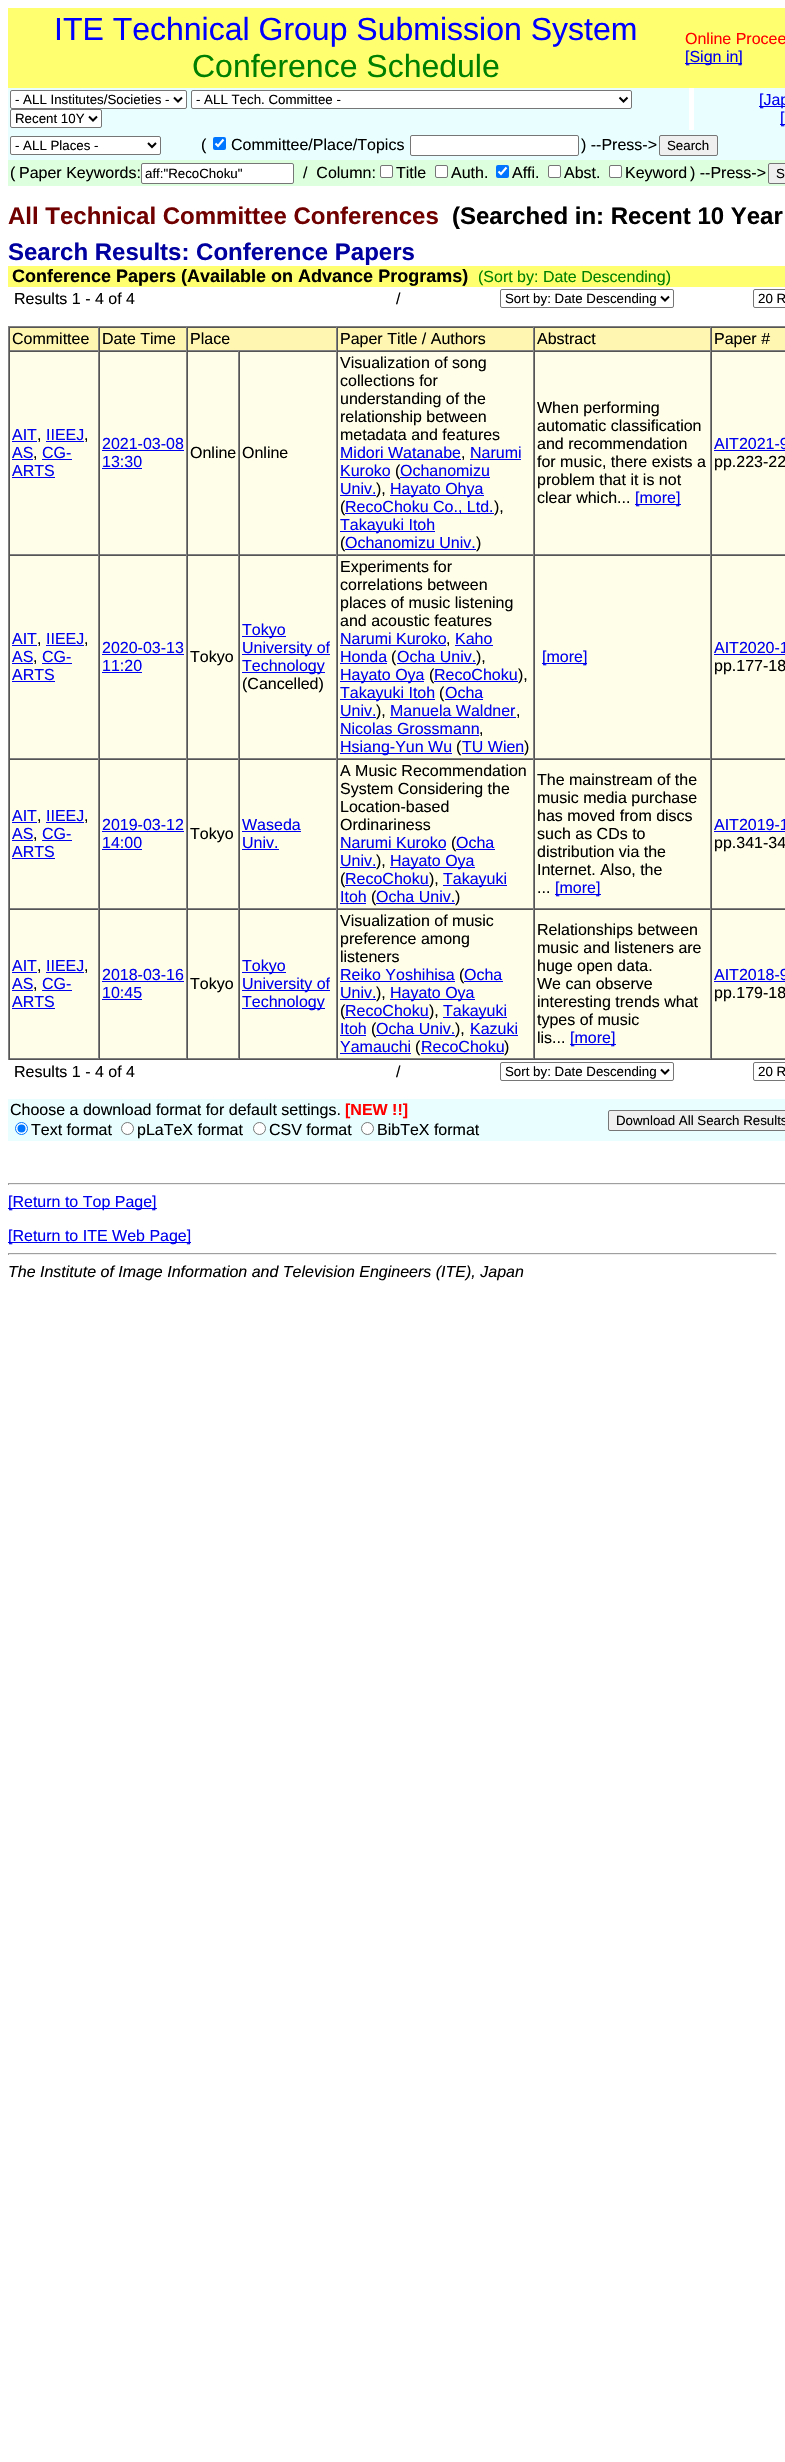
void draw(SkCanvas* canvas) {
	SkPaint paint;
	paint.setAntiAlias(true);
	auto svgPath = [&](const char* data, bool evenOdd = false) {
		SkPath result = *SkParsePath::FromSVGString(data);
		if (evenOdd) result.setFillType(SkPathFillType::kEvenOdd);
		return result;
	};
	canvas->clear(0xffffffff);
	paint.setColor(0xffffff6f);
	canvas->drawRect(SkRect::MakeXYWH(8, 8, 777, 80), paint);
	SkFont f1(fontMgr->matchFamilyStyle("Liberation Sans", SkFontStyle::Normal()), 32);
	f1.setSubpixel(true);
	paint.setColor(0xff0000ff);
	canvas->drawString("ITE Technical Group Submission System", 54, 40, f1, paint);
	paint.setColor(0xff008000);
	canvas->drawString("Conference Schedule", 192, 77, f1, paint);
	SkFont f2(fontMgr->matchFamilyStyle("Liberation Sans", SkFontStyle::Normal()), 16);
	f2.setSubpixel(true);
	paint.setColor(0xffff0000);
	canvas->drawString("Online Procee", 685, 44, f2, paint);
	paint.setColor(0xff0000ee);
	canvas->drawRect(SkRect::MakeXYWH(685, 63, 57, 1), paint);
	canvas->drawString("[Sign in]", 685, 62, f2, paint);
	paint.setColor(0xffe9ffff);
	canvas->drawRect(SkRect::MakeXYWH(8, 88, 681, 42), paint);
	paint.setColor(0xffffffff);
	canvas->drawRoundRect(SkRect::MakeXYWH(10.5, 90.5, 176, 18), 1.5, 1.5, paint);
	paint.setStroke(true);
	paint.setStrokeWidth(1);
	paint.setColor(0xff767676);
	canvas->drawRoundRect(SkRect::MakeXYWH(10.5, 90.5, 176, 18), 1.5, 1.5, paint);
	paint.setStrokeWidth(2);
	paint.setColor(0xff000000);
	canvas->drawPath(svgPath("M174 97.5L178 101.5L182 97.5"), paint);
	SkFont f3(fontMgr->matchFamilyStyle("Liberation Sans", SkFontStyle::Normal()), 13.3);
	f3.setSubpixel(true);
	paint.setStroke(false);
	canvas->drawString("- ALL Institutes/Societies -", 15, 104, f3, paint);
	paint.setColor(0xffffffff);
	canvas->drawRoundRect(SkRect::MakeXYWH(191.5, 90.5, 440, 18), 1.5, 1.5, paint);
	paint.setStroke(true);
	paint.setStrokeWidth(1);
	paint.setColor(0xff767676);
	canvas->drawRoundRect(SkRect::MakeXYWH(191.5, 90.5, 440, 18), 1.5, 1.5, paint);
	paint.setStrokeWidth(2);
	paint.setColor(0xff000000);
	canvas->drawPath(svgPath("M619.5 97.5L623.5 101.5L627.5 97.5"), paint);
	paint.setStroke(false);
	canvas->drawString("- ALL Tech. Committee -", 196, 104, f3, paint);
	paint.setColor(0xffffffff);
	canvas->drawRoundRect(SkRect::MakeXYWH(10.5, 109.5, 91, 18), 1.5, 1.5, paint);
	paint.setStroke(true);
	paint.setStrokeWidth(1);
	paint.setColor(0xff767676);
	canvas->drawRoundRect(SkRect::MakeXYWH(10.5, 109.5, 91, 18), 1.5, 1.5, paint);
	paint.setStrokeWidth(2);
	paint.setColor(0xff000000);
	canvas->drawPath(svgPath("M89 116.5L93 120.5L97 116.5"), paint);
	paint.setStroke(false);
	canvas->drawString("Recent 10Y", 15, 123, f3, paint);
	paint.setColor(0xffe9ffff);
	canvas->drawRect(SkRect::MakeXYWH(694, 88, 91, 42), paint);
	paint.setColor(0xff0000ee);
	canvas->drawRect(SkRect::MakeXYWH(759, 106, 26, 1), paint);
	canvas->drawString("[Jap", 759, 105, f2, paint);
	canvas->drawRect(SkRect::MakeXYWH(780, 124, 5, 1), paint);
	canvas->drawString("[", 780, 123, f2, paint);
	paint.setColor(0xffe9ffff);
	canvas->drawRect(SkRect::MakeXYWH(8, 130, 777, 30), paint);
	paint.setColor(0xffffffff);
	canvas->drawRoundRect(SkRect::MakeXYWH(10.5, 136.5, 150, 18), 1.5, 1.5, paint);
	paint.setStroke(true);
	paint.setStrokeWidth(1);
	paint.setColor(0xff767676);
	canvas->drawRoundRect(SkRect::MakeXYWH(10.5, 136.5, 150, 18), 1.5, 1.5, paint);
	paint.setStrokeWidth(2);
	paint.setColor(0xff000000);
	canvas->drawPath(svgPath("M148 143L152 147L156 143"), paint);
	paint.setStroke(false);
	canvas->drawString("- ALL Places -", 15, 150, f3, paint);
	canvas->drawString("(", 201, 150, f2, paint);
	paint.setColor(0xff0075ff);
	canvas->drawRoundRect(SkRect::MakeXYWH(213, 137, 13, 13), 2, 2, paint);
	paint.setStroke(true);
	paint.setStrokeWidth(2.1);
	paint.setColor(0xffffffff);
	canvas->drawPath(svgPath("M215.5 143.5L218 146L223.5 139.5"), paint);
	paint.setStroke(false);
	paint.setColor(0xff000000);
	canvas->drawString("Committee/Place/Topics", 231, 150, f2, paint);
	paint.setColor(0xffffffff);
	canvas->drawRoundRect(SkRect::MakeXYWH(410.5, 135.5, 168, 20), 1.5, 1.5, paint);
	paint.setStroke(true);
	paint.setStrokeWidth(1);
	paint.setColor(0xff767676);
	canvas->drawRoundRect(SkRect::MakeXYWH(410.5, 135.5, 168, 20), 1.5, 1.5, paint);
	paint.setStroke(false);
	paint.setColor(0xff000000);
	canvas->drawString(") --Press->", 581, 150, f2, paint);
	paint.setColor(0xffefefef);
	canvas->drawRoundRect(SkRect::MakeXYWH(659.5, 135.5, 58, 20), 1.5, 1.5, paint);
	paint.setStroke(true);
	paint.setColor(0xff767676);
	canvas->drawRoundRect(SkRect::MakeXYWH(659.5, 135.5, 58, 20), 1.5, 1.5, paint);
	paint.setStroke(false);
	paint.setColor(0xff000000);
	canvas->drawString("Search", 667, 150, f3, paint);
	paint.setColor(0xffdeffde);
	canvas->drawRect(SkRect::MakeXYWH(8, 160, 777, 26), paint);
	paint.setColor(0xff000000);
	canvas->drawString("(", 10, 178, f2, paint);
	canvas->drawString("Paper Keywords:", 19, 178, f2, paint);
	paint.setColor(0xffffffff);
	canvas->drawRoundRect(SkRect::MakeXYWH(141.5, 163.5, 152, 20), 1.5, 1.5, paint);
	paint.setStroke(true);
	paint.setColor(0xff767676);
	canvas->drawRoundRect(SkRect::MakeXYWH(141.5, 163.5, 152, 20), 1.5, 1.5, paint);
	paint.setStroke(false);
	paint.setColor(0xff000000);
	canvas->drawString("aff:\"RecoChoku\"", 145, 178, f3, paint);
	canvas->drawString("/  Column:", 303, 178, f2, paint);
	paint.setColor(0xffffffff);
	canvas->drawRoundRect(SkRect::MakeXYWH(380.5, 165.5, 12, 12), 1.5, 1.5, paint);
	paint.setStroke(true);
	paint.setColor(0xff767676);
	canvas->drawRoundRect(SkRect::MakeXYWH(380.5, 165.5, 12, 12), 1.5, 1.5, paint);
	paint.setStroke(false);
	paint.setColor(0xff000000);
	canvas->drawString("Title", 396, 178, f2, paint);
	paint.setColor(0xffffffff);
	canvas->drawRoundRect(SkRect::MakeXYWH(435.5, 165.5, 12, 12), 1.5, 1.5, paint);
	paint.setStroke(true);
	paint.setColor(0xff767676);
	canvas->drawRoundRect(SkRect::MakeXYWH(435.5, 165.5, 12, 12), 1.5, 1.5, paint);
	paint.setStroke(false);
	paint.setColor(0xff000000);
	canvas->drawString("Auth.", 451, 178, f2, paint);
	paint.setColor(0xff0075ff);
	canvas->drawRoundRect(SkRect::MakeXYWH(496, 165, 13, 13), 2, 2, paint);
	paint.setStroke(true);
	paint.setStrokeWidth(2.1);
	paint.setColor(0xffffffff);
	canvas->drawPath(svgPath("M498.5 171.5L501 174L506.5 167.5"), paint);
	paint.setStroke(false);
	paint.setColor(0xff000000);
	canvas->drawString("Affi.", 512, 178, f2, paint);
	paint.setColor(0xffffffff);
	canvas->drawRoundRect(SkRect::MakeXYWH(548.5, 165.5, 12, 12), 1.5, 1.5, paint);
	paint.setStroke(true);
	paint.setStrokeWidth(1);
	paint.setColor(0xff767676);
	canvas->drawRoundRect(SkRect::MakeXYWH(548.5, 165.5, 12, 12), 1.5, 1.5, paint);
	paint.setStroke(false);
	paint.setColor(0xff000000);
	canvas->drawString("Abst.", 564, 178, f2, paint);
	paint.setColor(0xffffffff);
	canvas->drawRoundRect(SkRect::MakeXYWH(609.5, 165.5, 12, 12), 1.5, 1.5, paint);
	paint.setStroke(true);
	paint.setColor(0xff767676);
	canvas->drawRoundRect(SkRect::MakeXYWH(609.5, 165.5, 12, 12), 1.5, 1.5, paint);
	paint.setStroke(false);
	paint.setColor(0xff000000);
	canvas->drawString("Keyword", 625, 178, f2, paint);
	canvas->drawString(") --Press->", 690, 178, f2, paint);
	paint.setColor(0xffefefef);
	canvas->drawRoundRect(SkRect::MakeXYWH(768.5, 163.5, 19, 20), 1.5, 1.5, paint);
	paint.setStroke(true);
	paint.setColor(0xff767676);
	canvas->drawRoundRect(SkRect::MakeXYWH(768.5, 163.5, 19, 20), 1.5, 1.5, paint);
	paint.setStroke(false);
	paint.setColor(0xff000000);
	canvas->drawString("S", 776, 178, f3, paint);
	SkFont f4(fontMgr->matchFamilyStyle("Liberation Sans", SkFontStyle::Bold()), 24);
	f4.setSubpixel(true);
	paint.setColor(0xff700000);
	canvas->drawString("All Technical Committee Conferences", 8, 224, f4, paint);
	paint.setColor(0xff000000);
	canvas->drawString("(Searched in: Recent 10 Year", 452, 224, f4, paint);
	paint.setColor(0xff0000a0);
	canvas->drawString("Search Results: Conference Papers", 8, 260, f4, paint);
	paint.setColor(0xffffff6f);
	canvas->drawRect(SkRect::MakeXYWH(8, 266, 777, 21), paint);
	SkFont f5(fontMgr->matchFamilyStyle("Liberation Sans", SkFontStyle::Bold()), 18);
	f5.setSubpixel(true);
	paint.setColor(0xff000000);
	canvas->drawString("Conference Papers (Available on Advance Programs)", 12, 282, f5, paint);
	paint.setColor(0xff008000);
	canvas->drawString("(Sort by: Date Descending)", 478, 282, f2, paint);
	paint.setColor(0xff000000);
	canvas->drawString("Results 1 - 4 of 4", 14, 304, f2, paint);
	canvas->drawString("/", 396, 304, f2, paint);
	paint.setStroke(true);
	paint.setColor(0xff767676);
	canvas->drawRoundRect(SkRect::MakeXYWH(500.5, 289.5, 173, 18), 1.5, 1.5, paint);
	paint.setStrokeWidth(2);
	paint.setColor(0xff000000);
	canvas->drawPath(svgPath("M661 296.5L665 300.5L669 296.5"), paint);
	paint.setStroke(false);
	canvas->drawString("Sort by: Date Descending", 505, 303, f3, paint);
	paint.setStroke(true);
	paint.setStrokeWidth(1);
	paint.setColor(0xff767676);
	canvas->drawRoundRect(SkRect::MakeXYWH(753.5, 289.5, 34, 18), 1.5, 1.5, paint);
	paint.setStroke(false);
	paint.setColor(0xff000000);
	canvas->drawString("20 R", 758, 303, f3, paint);
	paint.setColor(0xff808080);
	canvas->drawRect(SkRect::MakeXYWH(8, 326, 777, 1), paint);
	paint.setColor(0xff555555);
	canvas->drawRect(SkRect::MakeXYWH(8, 1059, 777, 1), paint);
	paint.setColor(0xff808080);
	canvas->drawRect(SkRect::MakeXYWH(8, 326, 1, 734), paint);
	paint.setColor(0xfffff6b1);
	canvas->drawRect(SkRect::MakeXYWH(10, 328, 88, 22), paint);
	paint.setColor(0xff555555);
	canvas->drawRect(SkRect::MakeXYWH(9, 327, 776, 1), paint);
	paint.setColor(0xff808080);
	canvas->drawRect(SkRect::MakeXYWH(98, 327, 1, 24), paint);
	canvas->drawRect(SkRect::MakeXYWH(9, 350, 90, 1), paint);
	paint.setColor(0xff555555);
	canvas->drawRect(SkRect::MakeXYWH(9, 327, 1, 24), paint);
	paint.setColor(0xff000000);
	canvas->drawString("Committee", 12, 344, f2, paint);
	paint.setColor(0xfffff6b1);
	canvas->drawRect(SkRect::MakeXYWH(100, 328, 86, 22), paint);
	paint.setColor(0xff808080);
	canvas->drawRect(SkRect::MakeXYWH(186, 327, 1, 24), paint);
	canvas->drawRect(SkRect::MakeXYWH(99, 350, 88, 1), paint);
	paint.setColor(0xff555555);
	canvas->drawRect(SkRect::MakeXYWH(99, 327, 1, 24), paint);
	paint.setColor(0xff000000);
	canvas->drawString("Date Time", 102, 344, f2, paint);
	paint.setColor(0xfffff6b1);
	canvas->drawRect(SkRect::MakeXYWH(188, 328, 148, 22), paint);
	paint.setColor(0xff808080);
	canvas->drawRect(SkRect::MakeXYWH(336, 327, 1, 24), paint);
	canvas->drawRect(SkRect::MakeXYWH(187, 350, 150, 1), paint);
	paint.setColor(0xff555555);
	canvas->drawRect(SkRect::MakeXYWH(187, 327, 1, 24), paint);
	paint.setColor(0xff000000);
	canvas->drawString("Place", 190, 344, f2, paint);
	paint.setColor(0xfffff6b1);
	canvas->drawRect(SkRect::MakeXYWH(338, 328, 195, 22), paint);
	paint.setColor(0xff808080);
	canvas->drawRect(SkRect::MakeXYWH(533, 327, 1, 24), paint);
	canvas->drawRect(SkRect::MakeXYWH(337, 350, 197, 1), paint);
	paint.setColor(0xff555555);
	canvas->drawRect(SkRect::MakeXYWH(337, 327, 1, 24), paint);
	paint.setColor(0xff000000);
	canvas->drawString("Paper Title / Authors", 340, 344, f2, paint);
	paint.setColor(0xfffff6b1);
	canvas->drawRect(SkRect::MakeXYWH(535, 328, 175, 22), paint);
	paint.setColor(0xff808080);
	canvas->drawRect(SkRect::MakeXYWH(710, 327, 1, 24), paint);
	canvas->drawRect(SkRect::MakeXYWH(534, 350, 251, 1), paint);
	paint.setColor(0xff555555);
	canvas->drawRect(SkRect::MakeXYWH(534, 327, 1, 24), paint);
	paint.setColor(0xff000000);
	canvas->drawString("Abstract", 537, 344, f2, paint);
	paint.setColor(0xfffff6b1);
	canvas->drawRect(SkRect::MakeXYWH(712, 328, 73, 22), paint);
	paint.setColor(0xff555555);
	canvas->drawRect(SkRect::MakeXYWH(711, 327, 1, 24), paint);
	paint.setColor(0xff000000);
	canvas->drawString("Paper #", 714, 344, f2, paint);
	paint.setColor(0xffffffe9);
	canvas->drawRect(SkRect::MakeXYWH(10, 352, 88, 202), paint);
	paint.setColor(0xff555555);
	canvas->drawRect(SkRect::MakeXYWH(9, 351, 776, 1), paint);
	paint.setColor(0xff808080);
	canvas->drawRect(SkRect::MakeXYWH(98, 351, 1, 204), paint);
	canvas->drawRect(SkRect::MakeXYWH(9, 554, 90, 1), paint);
	paint.setColor(0xff555555);
	canvas->drawRect(SkRect::MakeXYWH(9, 351, 1, 204), paint);
	paint.setColor(0xff0000ee);
	canvas->drawString("AIT", 12, 440, f2, paint);
	canvas->drawRect(SkRect::MakeXYWH(12, 441, 25, 1), paint);
	paint.setColor(0xff000000);
	canvas->drawString(",", 37, 440, f2, paint);
	paint.setColor(0xff0000ee);
	canvas->drawString("IIEEJ", 46, 440, f2, paint);
	canvas->drawRect(SkRect::MakeXYWH(46, 441, 38, 1), paint);
	paint.setColor(0xff000000);
	canvas->drawString(",", 84, 440, f2, paint);
	paint.setColor(0xff0000ee);
	canvas->drawString("AS", 12, 458, f2, paint);
	canvas->drawRect(SkRect::MakeXYWH(12, 459, 21, 1), paint);
	paint.setColor(0xff000000);
	canvas->drawString(",", 33, 458, f2, paint);
	paint.setColor(0xff0000ee);
	canvas->drawString("CG-", 42, 458, f2, paint);
	canvas->drawRect(SkRect::MakeXYWH(42, 459, 30, 1), paint);
	canvas->drawString("ARTS", 12, 476, f2, paint);
	canvas->drawRect(SkRect::MakeXYWH(12, 477, 43, 1), paint);
	paint.setColor(0xffffffe9);
	canvas->drawRect(SkRect::MakeXYWH(100, 352, 86, 202), paint);
	paint.setColor(0xff808080);
	canvas->drawRect(SkRect::MakeXYWH(186, 351, 1, 204), paint);
	canvas->drawRect(SkRect::MakeXYWH(99, 554, 88, 1), paint);
	paint.setColor(0xff555555);
	canvas->drawRect(SkRect::MakeXYWH(99, 351, 1, 204), paint);
	paint.setColor(0xff0000ee);
	canvas->drawString("2021-03-08", 102, 449, f2, paint);
	canvas->drawRect(SkRect::MakeXYWH(102, 450, 82, 1), paint);
	canvas->drawString("13:30", 102, 467, f2, paint);
	canvas->drawRect(SkRect::MakeXYWH(102, 468, 40, 1), paint);
	paint.setColor(0xffffffe9);
	canvas->drawRect(SkRect::MakeXYWH(188, 352, 50, 202), paint);
	paint.setColor(0xff808080);
	canvas->drawRect(SkRect::MakeXYWH(238, 351, 1, 204), paint);
	canvas->drawRect(SkRect::MakeXYWH(187, 554, 52, 1), paint);
	paint.setColor(0xff555555);
	canvas->drawRect(SkRect::MakeXYWH(187, 351, 1, 204), paint);
	paint.setColor(0xff000000);
	canvas->drawString("Online", 190, 458, f2, paint);
	paint.setColor(0xffffffe9);
	canvas->drawRect(SkRect::MakeXYWH(240, 352, 96, 202), paint);
	paint.setColor(0xff808080);
	canvas->drawRect(SkRect::MakeXYWH(336, 351, 1, 204), paint);
	canvas->drawRect(SkRect::MakeXYWH(239, 554, 98, 1), paint);
	paint.setColor(0xff555555);
	canvas->drawRect(SkRect::MakeXYWH(239, 351, 1, 204), paint);
	paint.setColor(0xff000000);
	canvas->drawString("Online", 242, 458, f2, paint);
	paint.setColor(0xffffffe9);
	canvas->drawRect(SkRect::MakeXYWH(338, 352, 195, 202), paint);
	paint.setColor(0xff808080);
	canvas->drawRect(SkRect::MakeXYWH(533, 351, 1, 204), paint);
	canvas->drawRect(SkRect::MakeXYWH(337, 554, 197, 1), paint);
	paint.setColor(0xff555555);
	canvas->drawRect(SkRect::MakeXYWH(337, 351, 1, 204), paint);
	paint.setColor(0xff000000);
	canvas->drawString("Visualization of song", 340, 368, f2, paint);
	canvas->drawString("collections for", 340, 386, f2, paint);
	canvas->drawString("understanding of the", 340, 404, f2, paint);
	canvas->drawString("relationship between", 340, 422, f2, paint);
	canvas->drawString("metadata and features", 340, 440, f2, paint);
	paint.setColor(0xff0000ee);
	canvas->drawString("Midori Watanabe", 340, 458, f2, paint);
	canvas->drawRect(SkRect::MakeXYWH(340, 459, 121, 1), paint);
	paint.setColor(0xff000000);
	canvas->drawString(",", 461, 458, f2, paint);
	paint.setColor(0xff0000ee);
	canvas->drawString("Narumi", 470, 458, f2, paint);
	canvas->drawRect(SkRect::MakeXYWH(470, 459, 51, 1), paint);
	canvas->drawString("Kuroko", 340, 476, f2, paint);
	canvas->drawRect(SkRect::MakeXYWH(340, 477, 50, 1), paint);
	paint.setColor(0xff000000);
	canvas->drawString("(", 395, 476, f2, paint);
	paint.setColor(0xff0000ee);
	canvas->drawString("Ochanomizu", 400, 476, f2, paint);
	canvas->drawRect(SkRect::MakeXYWH(400, 477, 90, 1), paint);
	canvas->drawString("Univ.", 340, 494, f2, paint);
	canvas->drawRect(SkRect::MakeXYWH(340, 495, 36, 1), paint);
	paint.setColor(0xff000000);
	canvas->drawString("),", 376, 494, f2, paint);
	paint.setColor(0xff0000ee);
	canvas->drawRect(SkRect::MakeXYWH(390, 495, 94, 1), paint);
	canvas->drawString("Hayato Ohya", 390, 494, f2, paint);
	paint.setColor(0xff000000);
	canvas->drawString("(", 340, 512, f2, paint);
	paint.setColor(0xff0000ee);
	canvas->drawRect(SkRect::MakeXYWH(345, 513, 149, 1), paint);
	canvas->drawString("RecoChoku Co., Ltd.", 345, 512, f2, paint);
	paint.setColor(0xff000000);
	canvas->drawString("),", 494, 512, f2, paint);
	paint.setColor(0xff0000ee);
	canvas->drawRect(SkRect::MakeXYWH(340, 531, 95, 1), paint);
	canvas->drawString("Takayuki Itoh", 340, 530, f2, paint);
	paint.setColor(0xff000000);
	canvas->drawString("(", 340, 548, f2, paint);
	paint.setColor(0xff0000ee);
	canvas->drawString("Ochanomizu Univ.", 345, 548, f2, paint);
	canvas->drawRect(SkRect::MakeXYWH(345, 549, 131, 1), paint);
	paint.setColor(0xff000000);
	canvas->drawString(")", 476, 548, f2, paint);
	paint.setColor(0xffffffe9);
	canvas->drawRect(SkRect::MakeXYWH(535, 352, 175, 202), paint);
	paint.setColor(0xff808080);
	canvas->drawRect(SkRect::MakeXYWH(710, 351, 1, 204), paint);
	canvas->drawRect(SkRect::MakeXYWH(534, 554, 251, 1), paint);
	paint.setColor(0xff555555);
	canvas->drawRect(SkRect::MakeXYWH(534, 351, 1, 204), paint);
	paint.setColor(0xff000000);
	canvas->drawString("When performing", 537, 413, f2, paint);
	canvas->drawString("automatic classification", 537, 431, f2, paint);
	canvas->drawString("and recommendation", 537, 449, f2, paint);
	canvas->drawString("for music, there exists a", 537, 467, f2, paint);
	canvas->drawString("problem that it is not", 537, 485, f2, paint);
	canvas->drawString("clear which...", 537, 503, f2, paint);
	paint.setColor(0xff0000ee);
	canvas->drawRect(SkRect::MakeXYWH(635, 504, 46, 1), paint);
	canvas->drawString("[more]", 635, 503, f2, paint);
	paint.setColor(0xffffffe9);
	canvas->drawRect(SkRect::MakeXYWH(712, 352, 73, 202), paint);
	paint.setColor(0xff555555);
	canvas->drawRect(SkRect::MakeXYWH(711, 351, 1, 204), paint);
	paint.setColor(0xff0000ee);
	canvas->drawString("AIT2021-9", 714, 449, f2, paint);
	canvas->drawRect(SkRect::MakeXYWH(714, 450, 71, 1), paint);
	paint.setColor(0xff000000);
	canvas->drawString("pp.223-22", 714, 467, f2, paint);
	paint.setColor(0xffffffe9);
	canvas->drawRect(SkRect::MakeXYWH(10, 556, 88, 202), paint);
	paint.setColor(0xff555555);
	canvas->drawRect(SkRect::MakeXYWH(9, 555, 776, 1), paint);
	paint.setColor(0xff808080);
	canvas->drawRect(SkRect::MakeXYWH(98, 555, 1, 204), paint);
	canvas->drawRect(SkRect::MakeXYWH(9, 758, 90, 1), paint);
	paint.setColor(0xff555555);
	canvas->drawRect(SkRect::MakeXYWH(9, 555, 1, 204), paint);
	paint.setColor(0xff0000ee);
	canvas->drawString("AIT", 12, 644, f2, paint);
	canvas->drawRect(SkRect::MakeXYWH(12, 645, 25, 1), paint);
	paint.setColor(0xff000000);
	canvas->drawString(",", 37, 644, f2, paint);
	paint.setColor(0xff0000ee);
	canvas->drawString("IIEEJ", 46, 644, f2, paint);
	canvas->drawRect(SkRect::MakeXYWH(46, 645, 38, 1), paint);
	paint.setColor(0xff000000);
	canvas->drawString(",", 84, 644, f2, paint);
	paint.setColor(0xff0000ee);
	canvas->drawString("AS", 12, 662, f2, paint);
	canvas->drawRect(SkRect::MakeXYWH(12, 663, 21, 1), paint);
	paint.setColor(0xff000000);
	canvas->drawString(",", 33, 662, f2, paint);
	paint.setColor(0xff0000ee);
	canvas->drawString("CG-", 42, 662, f2, paint);
	canvas->drawRect(SkRect::MakeXYWH(42, 663, 30, 1), paint);
	canvas->drawString("ARTS", 12, 680, f2, paint);
	canvas->drawRect(SkRect::MakeXYWH(12, 681, 43, 1), paint);
	paint.setColor(0xffffffe9);
	canvas->drawRect(SkRect::MakeXYWH(100, 556, 86, 202), paint);
	paint.setColor(0xff808080);
	canvas->drawRect(SkRect::MakeXYWH(186, 555, 1, 204), paint);
	canvas->drawRect(SkRect::MakeXYWH(99, 758, 88, 1), paint);
	paint.setColor(0xff555555);
	canvas->drawRect(SkRect::MakeXYWH(99, 555, 1, 204), paint);
	paint.setColor(0xff0000ee);
	canvas->drawString("2020-03-13", 102, 653, f2, paint);
	canvas->drawRect(SkRect::MakeXYWH(102, 654, 82, 1), paint);
	canvas->drawString("11:20", 102, 671, f2, paint);
	canvas->drawRect(SkRect::MakeXYWH(102, 672, 40, 1), paint);
	paint.setColor(0xffffffe9);
	canvas->drawRect(SkRect::MakeXYWH(188, 556, 50, 202), paint);
	paint.setColor(0xff808080);
	canvas->drawRect(SkRect::MakeXYWH(238, 555, 1, 204), paint);
	canvas->drawRect(SkRect::MakeXYWH(187, 758, 52, 1), paint);
	paint.setColor(0xff555555);
	canvas->drawRect(SkRect::MakeXYWH(187, 555, 1, 204), paint);
	paint.setColor(0xff000000);
	canvas->drawString("Tokyo", 190, 662, f2, paint);
	paint.setColor(0xffffffe9);
	canvas->drawRect(SkRect::MakeXYWH(240, 556, 96, 202), paint);
	paint.setColor(0xff808080);
	canvas->drawRect(SkRect::MakeXYWH(336, 555, 1, 204), paint);
	canvas->drawRect(SkRect::MakeXYWH(239, 758, 98, 1), paint);
	paint.setColor(0xff555555);
	canvas->drawRect(SkRect::MakeXYWH(239, 555, 1, 204), paint);
	paint.setColor(0xff0000ee);
	canvas->drawRect(SkRect::MakeXYWH(242, 636, 44, 1), paint);
	canvas->drawString("Tokyo", 242, 635, f2, paint);
	canvas->drawRect(SkRect::MakeXYWH(242, 654, 88, 1), paint);
	canvas->drawString("University of", 242, 653, f2, paint);
	canvas->drawRect(SkRect::MakeXYWH(242, 672, 83, 1), paint);
	canvas->drawString("Technology", 242, 671, f2, paint);
	paint.setColor(0xff000000);
	canvas->drawString("(Cancelled)", 242, 689, f2, paint);
	paint.setColor(0xffffffe9);
	canvas->drawRect(SkRect::MakeXYWH(338, 556, 195, 202), paint);
	paint.setColor(0xff808080);
	canvas->drawRect(SkRect::MakeXYWH(533, 555, 1, 204), paint);
	canvas->drawRect(SkRect::MakeXYWH(337, 758, 197, 1), paint);
	paint.setColor(0xff555555);
	canvas->drawRect(SkRect::MakeXYWH(337, 555, 1, 204), paint);
	paint.setColor(0xff000000);
	canvas->drawString("Experiments for", 340, 572, f2, paint);
	canvas->drawString("correlations between", 340, 590, f2, paint);
	canvas->drawString("places of music listening", 340, 608, f2, paint);
	canvas->drawString("and acoustic features", 340, 626, f2, paint);
	paint.setColor(0xff0000ee);
	canvas->drawString("Narumi Kuroko", 340, 644, f2, paint);
	canvas->drawRect(SkRect::MakeXYWH(340, 645, 106, 1), paint);
	paint.setColor(0xff000000);
	canvas->drawString(",", 446, 644, f2, paint);
	paint.setColor(0xff0000ee);
	canvas->drawString("Kaho", 455, 644, f2, paint);
	canvas->drawRect(SkRect::MakeXYWH(455, 645, 38, 1), paint);
	canvas->drawString("Honda", 340, 662, f2, paint);
	canvas->drawRect(SkRect::MakeXYWH(340, 663, 47, 1), paint);
	paint.setColor(0xff000000);
	canvas->drawString("(", 391, 662, f2, paint);
	paint.setColor(0xff0000ee);
	canvas->drawString("Ocha Univ.", 397, 662, f2, paint);
	canvas->drawRect(SkRect::MakeXYWH(397, 663, 79, 1), paint);
	paint.setColor(0xff000000);
	canvas->drawString("),", 476, 662, f2, paint);
	paint.setColor(0xff0000ee);
	canvas->drawRect(SkRect::MakeXYWH(340, 681, 84, 1), paint);
	canvas->drawString("Hayato Oya", 340, 680, f2, paint);
	paint.setColor(0xff000000);
	canvas->drawString("(", 429, 680, f2, paint);
	paint.setColor(0xff0000ee);
	canvas->drawString("RecoChoku", 434, 680, f2, paint);
	canvas->drawRect(SkRect::MakeXYWH(434, 681, 84, 1), paint);
	paint.setColor(0xff000000);
	canvas->drawString("),", 518, 680, f2, paint);
	paint.setColor(0xff0000ee);
	canvas->drawRect(SkRect::MakeXYWH(340, 699, 95, 1), paint);
	canvas->drawString("Takayuki Itoh", 340, 698, f2, paint);
	paint.setColor(0xff000000);
	canvas->drawString("(", 439, 698, f2, paint);
	paint.setColor(0xff0000ee);
	canvas->drawString("Ocha", 445, 698, f2, paint);
	canvas->drawRect(SkRect::MakeXYWH(445, 699, 38, 1), paint);
	canvas->drawString("Univ.", 340, 716, f2, paint);
	canvas->drawRect(SkRect::MakeXYWH(340, 717, 36, 1), paint);
	paint.setColor(0xff000000);
	canvas->drawString("),", 376, 716, f2, paint);
	paint.setColor(0xff0000ee);
	canvas->drawString("Manuela Waldner", 390, 716, f2, paint);
	canvas->drawRect(SkRect::MakeXYWH(390, 717, 126, 1), paint);
	paint.setColor(0xff000000);
	canvas->drawString(",", 516, 716, f2, paint);
	paint.setColor(0xff0000ee);
	canvas->drawString("Nicolas Grossmann", 340, 734, f2, paint);
	canvas->drawRect(SkRect::MakeXYWH(340, 735, 139, 1), paint);
	paint.setColor(0xff000000);
	canvas->drawString(",", 479, 734, f2, paint);
	paint.setColor(0xff0000ee);
	canvas->drawRect(SkRect::MakeXYWH(340, 753, 112, 1), paint);
	canvas->drawString("Hsiang-Yun Wu", 340, 752, f2, paint);
	paint.setColor(0xff000000);
	canvas->drawString("(", 456, 752, f2, paint);
	paint.setColor(0xff0000ee);
	canvas->drawString("TU Wien", 462, 752, f2, paint);
	canvas->drawRect(SkRect::MakeXYWH(462, 753, 62, 1), paint);
	paint.setColor(0xff000000);
	canvas->drawString(")", 524, 752, f2, paint);
	paint.setColor(0xffffffe9);
	canvas->drawRect(SkRect::MakeXYWH(535, 556, 175, 202), paint);
	paint.setColor(0xff808080);
	canvas->drawRect(SkRect::MakeXYWH(710, 555, 1, 204), paint);
	canvas->drawRect(SkRect::MakeXYWH(534, 758, 251, 1), paint);
	paint.setColor(0xff555555);
	canvas->drawRect(SkRect::MakeXYWH(534, 555, 1, 204), paint);
	paint.setColor(0xff0000ee);
	canvas->drawRect(SkRect::MakeXYWH(542, 663, 45, 1), paint);
	canvas->drawString("[more]", 542, 662, f2, paint);
	paint.setColor(0xffffffe9);
	canvas->drawRect(SkRect::MakeXYWH(712, 556, 73, 202), paint);
	paint.setColor(0xff555555);
	canvas->drawRect(SkRect::MakeXYWH(711, 555, 1, 204), paint);
	paint.setColor(0xff0000ee);
	canvas->drawString("AIT2020-1", 714, 653, f2, paint);
	canvas->drawRect(SkRect::MakeXYWH(714, 654, 71, 1), paint);
	paint.setColor(0xff000000);
	canvas->drawString("pp.177-18", 714, 671, f2, paint);
	paint.setColor(0xffffffe9);
	canvas->drawRect(SkRect::MakeXYWH(10, 760, 88, 148), paint);
	paint.setColor(0xff555555);
	canvas->drawRect(SkRect::MakeXYWH(9, 759, 776, 1), paint);
	paint.setColor(0xff808080);
	canvas->drawRect(SkRect::MakeXYWH(98, 759, 1, 150), paint);
	canvas->drawRect(SkRect::MakeXYWH(9, 908, 90, 1), paint);
	paint.setColor(0xff555555);
	canvas->drawRect(SkRect::MakeXYWH(9, 759, 1, 150), paint);
	paint.setColor(0xff0000ee);
	canvas->drawString("AIT", 12, 821, f2, paint);
	canvas->drawRect(SkRect::MakeXYWH(12, 822, 25, 1), paint);
	paint.setColor(0xff000000);
	canvas->drawString(",", 37, 821, f2, paint);
	paint.setColor(0xff0000ee);
	canvas->drawString("IIEEJ", 46, 821, f2, paint);
	canvas->drawRect(SkRect::MakeXYWH(46, 822, 38, 1), paint);
	paint.setColor(0xff000000);
	canvas->drawString(",", 84, 821, f2, paint);
	paint.setColor(0xff0000ee);
	canvas->drawString("AS", 12, 839, f2, paint);
	canvas->drawRect(SkRect::MakeXYWH(12, 840, 21, 1), paint);
	paint.setColor(0xff000000);
	canvas->drawString(",", 33, 839, f2, paint);
	paint.setColor(0xff0000ee);
	canvas->drawString("CG-", 42, 839, f2, paint);
	canvas->drawRect(SkRect::MakeXYWH(42, 840, 30, 1), paint);
	canvas->drawString("ARTS", 12, 857, f2, paint);
	canvas->drawRect(SkRect::MakeXYWH(12, 858, 43, 1), paint);
	paint.setColor(0xffffffe9);
	canvas->drawRect(SkRect::MakeXYWH(100, 760, 86, 148), paint);
	paint.setColor(0xff808080);
	canvas->drawRect(SkRect::MakeXYWH(186, 759, 1, 150), paint);
	canvas->drawRect(SkRect::MakeXYWH(99, 908, 88, 1), paint);
	paint.setColor(0xff555555);
	canvas->drawRect(SkRect::MakeXYWH(99, 759, 1, 150), paint);
	paint.setColor(0xff0000ee);
	canvas->drawString("2019-03-12", 102, 830, f2, paint);
	canvas->drawRect(SkRect::MakeXYWH(102, 831, 82, 1), paint);
	canvas->drawString("14:00", 102, 848, f2, paint);
	canvas->drawRect(SkRect::MakeXYWH(102, 849, 40, 1), paint);
	paint.setColor(0xffffffe9);
	canvas->drawRect(SkRect::MakeXYWH(188, 760, 50, 148), paint);
	paint.setColor(0xff808080);
	canvas->drawRect(SkRect::MakeXYWH(238, 759, 1, 150), paint);
	canvas->drawRect(SkRect::MakeXYWH(187, 908, 52, 1), paint);
	paint.setColor(0xff555555);
	canvas->drawRect(SkRect::MakeXYWH(187, 759, 1, 150), paint);
	paint.setColor(0xff000000);
	canvas->drawString("Tokyo", 190, 839, f2, paint);
	paint.setColor(0xffffffe9);
	canvas->drawRect(SkRect::MakeXYWH(240, 760, 96, 148), paint);
	paint.setColor(0xff808080);
	canvas->drawRect(SkRect::MakeXYWH(336, 759, 1, 150), paint);
	canvas->drawRect(SkRect::MakeXYWH(239, 908, 98, 1), paint);
	paint.setColor(0xff555555);
	canvas->drawRect(SkRect::MakeXYWH(239, 759, 1, 150), paint);
	paint.setColor(0xff0000ee);
	canvas->drawString("Waseda", 242, 830, f2, paint);
	canvas->drawRect(SkRect::MakeXYWH(242, 831, 59, 1), paint);
	canvas->drawString("Univ.", 242, 848, f2, paint);
	canvas->drawRect(SkRect::MakeXYWH(242, 849, 37, 1), paint);
	paint.setColor(0xffffffe9);
	canvas->drawRect(SkRect::MakeXYWH(338, 760, 195, 148), paint);
	paint.setColor(0xff808080);
	canvas->drawRect(SkRect::MakeXYWH(533, 759, 1, 150), paint);
	canvas->drawRect(SkRect::MakeXYWH(337, 908, 197, 1), paint);
	paint.setColor(0xff555555);
	canvas->drawRect(SkRect::MakeXYWH(337, 759, 1, 150), paint);
	paint.setColor(0xff000000);
	canvas->drawString("A Music Recommendation", 340, 776, f2, paint);
	canvas->drawString("System Considering the", 340, 794, f2, paint);
	canvas->drawString("Location-based", 340, 812, f2, paint);
	canvas->drawString("Ordinariness", 340, 830, f2, paint);
	paint.setColor(0xff0000ee);
	canvas->drawString("Narumi Kuroko", 340, 848, f2, paint);
	canvas->drawRect(SkRect::MakeXYWH(340, 849, 106, 1), paint);
	paint.setColor(0xff000000);
	canvas->drawString("(", 451, 848, f2, paint);
	paint.setColor(0xff0000ee);
	canvas->drawString("Ocha", 456, 848, f2, paint);
	canvas->drawRect(SkRect::MakeXYWH(456, 849, 39, 1), paint);
	canvas->drawString("Univ.", 340, 866, f2, paint);
	canvas->drawRect(SkRect::MakeXYWH(340, 867, 36, 1), paint);
	paint.setColor(0xff000000);
	canvas->drawString("),", 376, 866, f2, paint);
	paint.setColor(0xff0000ee);
	canvas->drawRect(SkRect::MakeXYWH(390, 867, 85, 1), paint);
	canvas->drawString("Hayato Oya", 390, 866, f2, paint);
	paint.setColor(0xff000000);
	canvas->drawString("(", 340, 884, f2, paint);
	paint.setColor(0xff0000ee);
	canvas->drawString("RecoChoku", 345, 884, f2, paint);
	canvas->drawRect(SkRect::MakeXYWH(345, 885, 84, 1), paint);
	paint.setColor(0xff000000);
	canvas->drawString("),", 429, 884, f2, paint);
	paint.setColor(0xff0000ee);
	canvas->drawRect(SkRect::MakeXYWH(443, 885, 64, 1), paint);
	canvas->drawString("Takayuki", 443, 884, f2, paint);
	canvas->drawString("Itoh", 340, 902, f2, paint);
	canvas->drawRect(SkRect::MakeXYWH(340, 903, 26, 1), paint);
	paint.setColor(0xff000000);
	canvas->drawString("(", 371, 902, f2, paint);
	paint.setColor(0xff0000ee);
	canvas->drawString("Ocha Univ.", 376, 902, f2, paint);
	canvas->drawRect(SkRect::MakeXYWH(376, 903, 79, 1), paint);
	paint.setColor(0xff000000);
	canvas->drawString(")", 455, 902, f2, paint);
	paint.setColor(0xffffffe9);
	canvas->drawRect(SkRect::MakeXYWH(535, 760, 175, 148), paint);
	paint.setColor(0xff808080);
	canvas->drawRect(SkRect::MakeXYWH(710, 759, 1, 150), paint);
	canvas->drawRect(SkRect::MakeXYWH(534, 908, 251, 1), paint);
	paint.setColor(0xff555555);
	canvas->drawRect(SkRect::MakeXYWH(534, 759, 1, 150), paint);
	paint.setColor(0xff000000);
	canvas->drawString("The mainstream of the", 537, 785, f2, paint);
	canvas->drawString("music media purchase", 537, 803, f2, paint);
	canvas->drawString("has moved from discs", 537, 821, f2, paint);
	canvas->drawString("such as CDs to", 537, 839, f2, paint);
	canvas->drawString("distribution via the", 537, 857, f2, paint);
	canvas->drawString("Internet. Also, the", 537, 875, f2, paint);
	canvas->drawString("...", 537, 893, f2, paint);
	paint.setColor(0xff0000ee);
	canvas->drawRect(SkRect::MakeXYWH(555, 894, 46, 1), paint);
	canvas->drawString("[more]", 555, 893, f2, paint);
	paint.setColor(0xffffffe9);
	canvas->drawRect(SkRect::MakeXYWH(712, 760, 73, 148), paint);
	paint.setColor(0xff555555);
	canvas->drawRect(SkRect::MakeXYWH(711, 759, 1, 150), paint);
	paint.setColor(0xff0000ee);
	canvas->drawString("AIT2019-1", 714, 830, f2, paint);
	canvas->drawRect(SkRect::MakeXYWH(714, 831, 71, 1), paint);
	paint.setColor(0xff000000);
	canvas->drawString("pp.341-34", 714, 848, f2, paint);
	paint.setColor(0xffffffe9);
	canvas->drawRect(SkRect::MakeXYWH(10, 910, 88, 148), paint);
	paint.setColor(0xff555555);
	canvas->drawRect(SkRect::MakeXYWH(9, 909, 776, 1), paint);
	paint.setColor(0xff808080);
	canvas->drawRect(SkRect::MakeXYWH(98, 909, 1, 150), paint);
	canvas->drawRect(SkRect::MakeXYWH(9, 1058, 90, 1), paint);
	paint.setColor(0xff555555);
	canvas->drawRect(SkRect::MakeXYWH(9, 909, 1, 150), paint);
	paint.setColor(0xff0000ee);
	canvas->drawString("AIT", 12, 971, f2, paint);
	canvas->drawRect(SkRect::MakeXYWH(12, 972, 25, 1), paint);
	paint.setColor(0xff000000);
	canvas->drawString(",", 37, 971, f2, paint);
	paint.setColor(0xff0000ee);
	canvas->drawString("IIEEJ", 46, 971, f2, paint);
	canvas->drawRect(SkRect::MakeXYWH(46, 972, 38, 1), paint);
	paint.setColor(0xff000000);
	canvas->drawString(",", 84, 971, f2, paint);
	paint.setColor(0xff0000ee);
	canvas->drawString("AS", 12, 989, f2, paint);
	canvas->drawRect(SkRect::MakeXYWH(12, 990, 21, 1), paint);
	paint.setColor(0xff000000);
	canvas->drawString(",", 33, 989, f2, paint);
	paint.setColor(0xff0000ee);
	canvas->drawString("CG-", 42, 989, f2, paint);
	canvas->drawRect(SkRect::MakeXYWH(42, 990, 30, 1), paint);
	canvas->drawString("ARTS", 12, 1007, f2, paint);
	canvas->drawRect(SkRect::MakeXYWH(12, 1008, 43, 1), paint);
	paint.setColor(0xffffffe9);
	canvas->drawRect(SkRect::MakeXYWH(100, 910, 86, 148), paint);
	paint.setColor(0xff808080);
	canvas->drawRect(SkRect::MakeXYWH(186, 909, 1, 150), paint);
	canvas->drawRect(SkRect::MakeXYWH(99, 1058, 88, 1), paint);
	paint.setColor(0xff555555);
	canvas->drawRect(SkRect::MakeXYWH(99, 909, 1, 150), paint);
	paint.setColor(0xff0000ee);
	canvas->drawString("2018-03-16", 102, 980, f2, paint);
	canvas->drawRect(SkRect::MakeXYWH(102, 981, 82, 1), paint);
	canvas->drawString("10:45", 102, 998, f2, paint);
	canvas->drawRect(SkRect::MakeXYWH(102, 999, 40, 1), paint);
	paint.setColor(0xffffffe9);
	canvas->drawRect(SkRect::MakeXYWH(188, 910, 50, 148), paint);
	paint.setColor(0xff808080);
	canvas->drawRect(SkRect::MakeXYWH(238, 909, 1, 150), paint);
	canvas->drawRect(SkRect::MakeXYWH(187, 1058, 52, 1), paint);
	paint.setColor(0xff555555);
	canvas->drawRect(SkRect::MakeXYWH(187, 909, 1, 150), paint);
	paint.setColor(0xff000000);
	canvas->drawString("Tokyo", 190, 989, f2, paint);
	paint.setColor(0xffffffe9);
	canvas->drawRect(SkRect::MakeXYWH(240, 910, 96, 148), paint);
	paint.setColor(0xff808080);
	canvas->drawRect(SkRect::MakeXYWH(336, 909, 1, 150), paint);
	canvas->drawRect(SkRect::MakeXYWH(239, 1058, 98, 1), paint);
	paint.setColor(0xff555555);
	canvas->drawRect(SkRect::MakeXYWH(239, 909, 1, 150), paint);
	paint.setColor(0xff0000ee);
	canvas->drawRect(SkRect::MakeXYWH(242, 972, 44, 1), paint);
	canvas->drawString("Tokyo", 242, 971, f2, paint);
	canvas->drawRect(SkRect::MakeXYWH(242, 990, 88, 1), paint);
	canvas->drawString("University of", 242, 989, f2, paint);
	canvas->drawRect(SkRect::MakeXYWH(242, 1008, 83, 1), paint);
	canvas->drawString("Technology", 242, 1007, f2, paint);
	paint.setColor(0xffffffe9);
	canvas->drawRect(SkRect::MakeXYWH(338, 910, 195, 148), paint);
	paint.setColor(0xff808080);
	canvas->drawRect(SkRect::MakeXYWH(533, 909, 1, 150), paint);
	canvas->drawRect(SkRect::MakeXYWH(337, 1058, 197, 1), paint);
	paint.setColor(0xff555555);
	canvas->drawRect(SkRect::MakeXYWH(337, 909, 1, 150), paint);
	paint.setColor(0xff000000);
	canvas->drawString("Visualization of music", 340, 926, f2, paint);
	canvas->drawString("preference among", 340, 944, f2, paint);
	canvas->drawString("listeners", 340, 962, f2, paint);
	paint.setColor(0xff0000ee);
	canvas->drawString("Reiko Yoshihisa", 340, 980, f2, paint);
	canvas->drawRect(SkRect::MakeXYWH(340, 981, 115, 1), paint);
	paint.setColor(0xff000000);
	canvas->drawString("(", 459, 980, f2, paint);
	paint.setColor(0xff0000ee);
	canvas->drawString("Ocha", 464, 980, f2, paint);
	canvas->drawRect(SkRect::MakeXYWH(464, 981, 39, 1), paint);
	canvas->drawString("Univ.", 340, 998, f2, paint);
	canvas->drawRect(SkRect::MakeXYWH(340, 999, 36, 1), paint);
	paint.setColor(0xff000000);
	canvas->drawString("),", 376, 998, f2, paint);
	paint.setColor(0xff0000ee);
	canvas->drawRect(SkRect::MakeXYWH(390, 999, 85, 1), paint);
	canvas->drawString("Hayato Oya", 390, 998, f2, paint);
	paint.setColor(0xff000000);
	canvas->drawString("(", 340, 1016, f2, paint);
	paint.setColor(0xff0000ee);
	canvas->drawString("RecoChoku", 345, 1016, f2, paint);
	canvas->drawRect(SkRect::MakeXYWH(345, 1017, 84, 1), paint);
	paint.setColor(0xff000000);
	canvas->drawString("),", 429, 1016, f2, paint);
	paint.setColor(0xff0000ee);
	canvas->drawRect(SkRect::MakeXYWH(443, 1017, 64, 1), paint);
	canvas->drawString("Takayuki", 443, 1016, f2, paint);
	canvas->drawString("Itoh", 340, 1034, f2, paint);
	canvas->drawRect(SkRect::MakeXYWH(340, 1035, 26, 1), paint);
	paint.setColor(0xff000000);
	canvas->drawString("(", 371, 1034, f2, paint);
	paint.setColor(0xff0000ee);
	canvas->drawString("Ocha Univ.", 376, 1034, f2, paint);
	canvas->drawRect(SkRect::MakeXYWH(376, 1035, 79, 1), paint);
	paint.setColor(0xff000000);
	canvas->drawString("),", 455, 1034, f2, paint);
	paint.setColor(0xff0000ee);
	canvas->drawString("Kazuki", 470, 1034, f2, paint);
	canvas->drawRect(SkRect::MakeXYWH(470, 1035, 48, 1), paint);
	canvas->drawString("Yamauchi", 340, 1052, f2, paint);
	canvas->drawRect(SkRect::MakeXYWH(340, 1053, 71, 1), paint);
	paint.setColor(0xff000000);
	canvas->drawString("(", 415, 1052, f2, paint);
	paint.setColor(0xff0000ee);
	canvas->drawString("RecoChoku", 421, 1052, f2, paint);
	canvas->drawRect(SkRect::MakeXYWH(421, 1053, 83, 1), paint);
	paint.setColor(0xff000000);
	canvas->drawString(")", 504, 1052, f2, paint);
	paint.setColor(0xffffffe9);
	canvas->drawRect(SkRect::MakeXYWH(535, 910, 175, 148), paint);
	paint.setColor(0xff808080);
	canvas->drawRect(SkRect::MakeXYWH(710, 909, 1, 150), paint);
	canvas->drawRect(SkRect::MakeXYWH(534, 1058, 251, 1), paint);
	paint.setColor(0xff555555);
	canvas->drawRect(SkRect::MakeXYWH(534, 909, 1, 150), paint);
	paint.setColor(0xff000000);
	canvas->drawString("Relationships between", 537, 935, f2, paint);
	canvas->drawString("music and listeners are", 537, 953, f2, paint);
	canvas->drawString("huge open data.", 537, 971, f2, paint);
	canvas->drawString("We can observe", 537, 989, f2, paint);
	canvas->drawString("interesting trends what", 537, 1007, f2, paint);
	canvas->drawString("types of music", 537, 1025, f2, paint);
	canvas->drawString("lis...", 537, 1043, f2, paint);
	paint.setColor(0xff0000ee);
	canvas->drawRect(SkRect::MakeXYWH(570, 1044, 46, 1), paint);
	canvas->drawString("[more]", 570, 1043, f2, paint);
	paint.setColor(0xffffffe9);
	canvas->drawRect(SkRect::MakeXYWH(712, 910, 73, 148), paint);
	paint.setColor(0xff555555);
	canvas->drawRect(SkRect::MakeXYWH(711, 909, 1, 150), paint);
	paint.setColor(0xff0000ee);
	canvas->drawString("AIT2018-9", 714, 980, f2, paint);
	canvas->drawRect(SkRect::MakeXYWH(714, 981, 71, 1), paint);
	paint.setColor(0xff000000);
	canvas->drawString("pp.179-18", 714, 998, f2, paint);
	canvas->drawString("Results 1 - 4 of 4", 14, 1077, f2, paint);
	canvas->drawString("/", 396, 1077, f2, paint);
	paint.setStroke(true);
	paint.setColor(0xff767676);
	canvas->drawRoundRect(SkRect::MakeXYWH(500.5, 1062.5, 173, 18), 1.5, 1.5, paint);
	paint.setStrokeWidth(2);
	paint.setColor(0xff000000);
	canvas->drawPath(svgPath("M661 1069.5L665 1073.5L669 1069.5"), paint);
	paint.setStroke(false);
	canvas->drawString("Sort by: Date Descending", 505, 1076, f3, paint);
	paint.setStroke(true);
	paint.setStrokeWidth(1);
	paint.setColor(0xff767676);
	canvas->drawRoundRect(SkRect::MakeXYWH(753.5, 1062.5, 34, 18), 1.5, 1.5, paint);
	paint.setStroke(false);
	paint.setColor(0xff000000);
	canvas->drawString("20 R", 758, 1076, f3, paint);
	paint.setColor(0xffe9ffff);
	canvas->drawRect(SkRect::MakeXYWH(8, 1099, 777, 42), paint);
	paint.setColor(0xff000000);
	canvas->drawString("Choose a download format for default settings.", 10, 1115, f2, paint);
	SkFont f6(fontMgr->matchFamilyStyle("Liberation Sans", SkFontStyle::Bold()), 16);
	f6.setSubpixel(true);
	paint.setColor(0xffff0000);
	canvas->drawString("[NEW !!]", 345, 1115, f6, paint);
	paint.setColor(0xffffffff);
	canvas->drawCircle(21.5, 1128.5, 6, paint);
	paint.setStroke(true);
	paint.setColor(0xff0075ff);
	canvas->drawCircle(21.5, 1128.5, 6, paint);
	paint.setStroke(false);
	canvas->drawCircle(21.5, 1128.5, 4, paint);
	paint.setColor(0xff000000);
	canvas->drawString("Text format", 31, 1135, f2, paint);
	paint.setColor(0xffffffff);
	canvas->drawCircle(127.5, 1128.5, 6, paint);
	paint.setStroke(true);
	paint.setColor(0xff767676);
	canvas->drawCircle(127.5, 1128.5, 6, paint);
	paint.setStroke(false);
	paint.setColor(0xff000000);
	canvas->drawString("pLaTeX format", 137, 1135, f2, paint);
	paint.setColor(0xffffffff);
	canvas->drawCircle(259.5, 1128.5, 6, paint);
	paint.setStroke(true);
	paint.setColor(0xff767676);
	canvas->drawCircle(259.5, 1128.5, 6, paint);
	paint.setStroke(false);
	paint.setColor(0xff000000);
	canvas->drawString("CSV format", 269, 1135, f2, paint);
	paint.setColor(0xffffffff);
	canvas->drawCircle(367.5, 1128.5, 6, paint);
	paint.setStroke(true);
	paint.setColor(0xff767676);
	canvas->drawCircle(367.5, 1128.5, 6, paint);
	paint.setStroke(false);
	paint.setColor(0xff000000);
	canvas->drawString("BibTeX format", 377, 1135, f2, paint);
	paint.setColor(0xffefefef);
	canvas->drawRoundRect(SkRect::MakeXYWH(608.5, 1110.5, 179, 20), 1.5, 1.5, paint);
	paint.setStroke(true);
	paint.setColor(0xff767676);
	canvas->drawRoundRect(SkRect::MakeXYWH(608.5, 1110.5, 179, 20), 1.5, 1.5, paint);
	paint.setStroke(false);
	paint.setColor(0xff000000);
	canvas->drawString("Download All Search Results", 616, 1125, f3, paint);
	paint.setColor(0xff9f9f9f);
	canvas->drawRect(SkRect::MakeXYWH(8, 1183, 777, 1), paint);
	paint.setColor(0xffeeeeee);
	canvas->drawRect(SkRect::MakeXYWH(8, 1184, 777, 1), paint);
	paint.setColor(0xff9f9f9f);
	canvas->drawRect(SkRect::MakeXYWH(8, 1183, 1, 2), paint);
	paint.setColor(0xff0000ee);
	canvas->drawRect(SkRect::MakeXYWH(8, 1208, 149, 1), paint);
	canvas->drawString("[Return to Top Page]", 8, 1207, f2, paint);
	canvas->drawRect(SkRect::MakeXYWH(8, 1242, 183, 1), paint);
	canvas->drawString("[Return to ITE Web Page]", 8, 1241, f2, paint);
	paint.setColor(0xff9f9f9f);
	canvas->drawRect(SkRect::MakeXYWH(8, 1253, 769, 1), paint);
	paint.setColor(0xffeeeeee);
	canvas->drawRect(SkRect::MakeXYWH(776, 1253, 1, 2), paint);
	canvas->drawRect(SkRect::MakeXYWH(8, 1254, 769, 1), paint);
	paint.setColor(0xff9f9f9f);
	canvas->drawRect(SkRect::MakeXYWH(8, 1253, 1, 2), paint);
	SkFont f7(fontMgr->matchFamilyStyle("Liberation Sans", SkFontStyle::Italic()), 16);
	f7.setSubpixel(true);
	paint.setColor(0xff000000);
	canvas->drawString("The Institute of Image Information and Television Engineers (ITE), Japan", 8, 1277, f7, paint);
}
